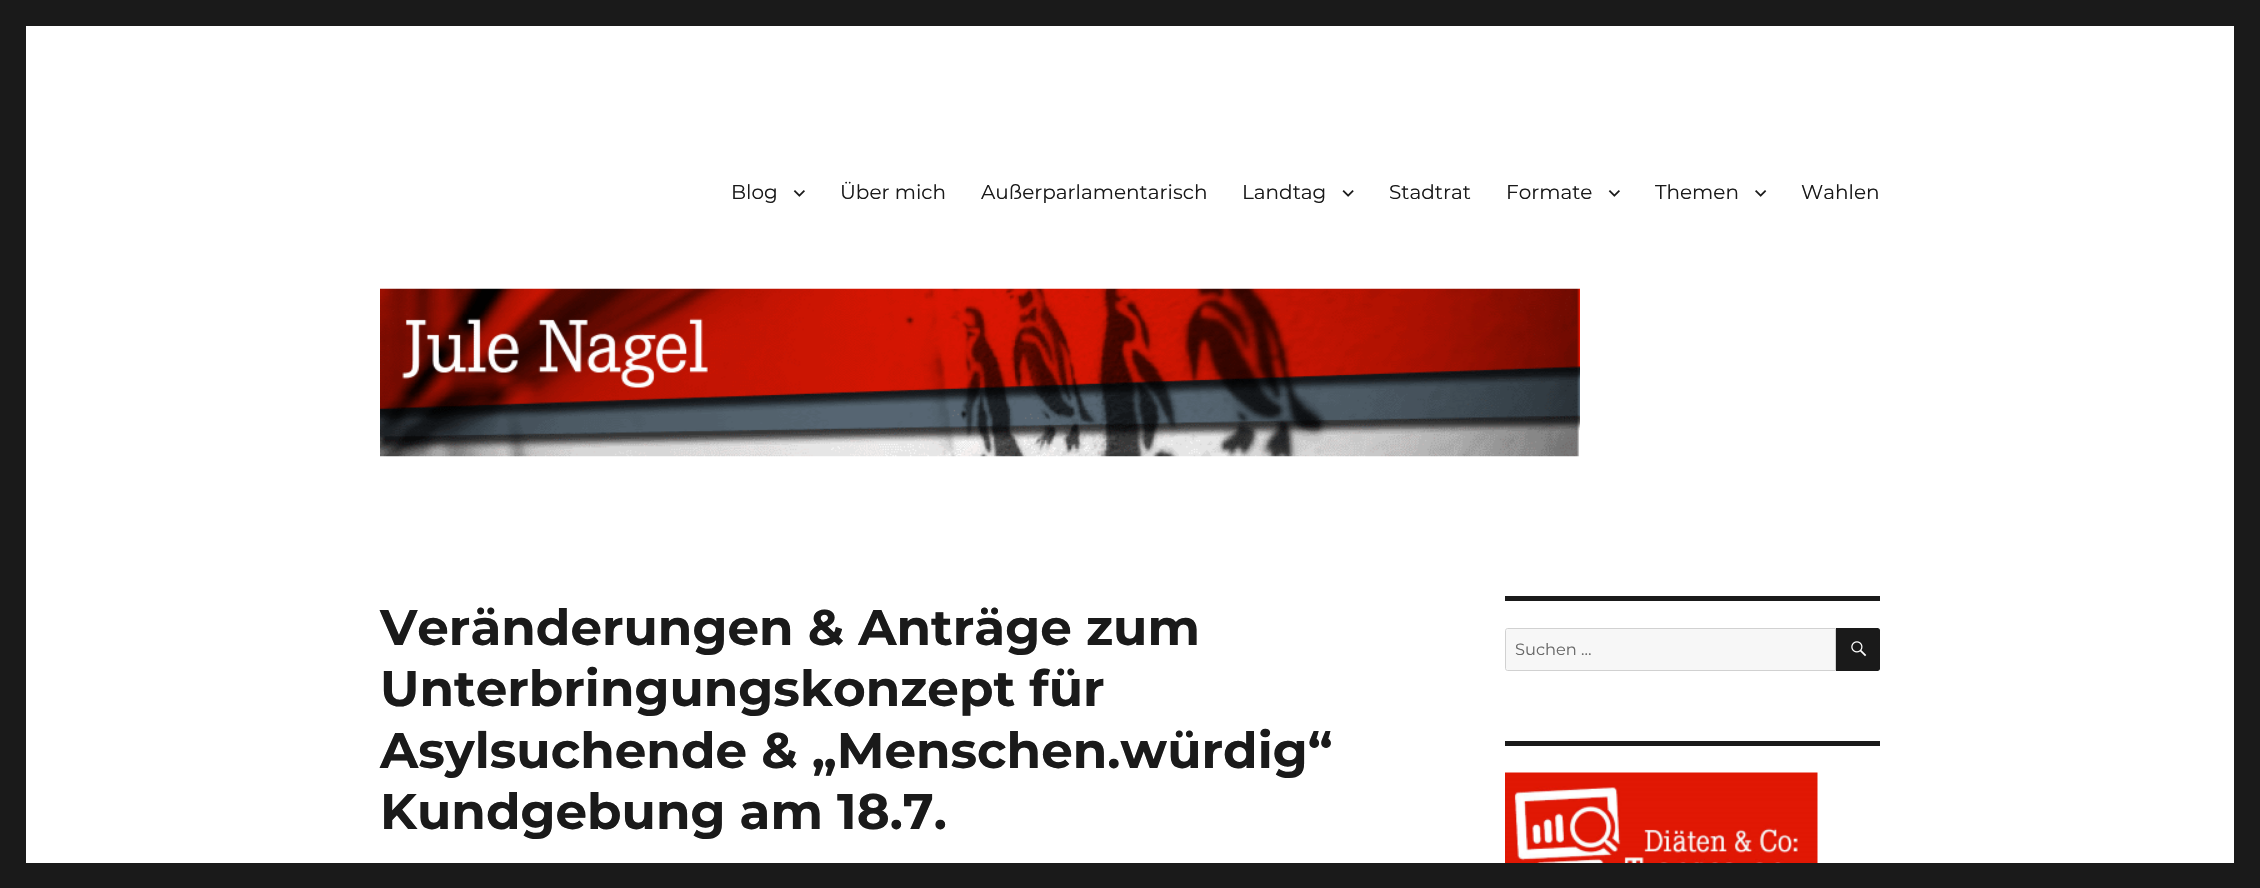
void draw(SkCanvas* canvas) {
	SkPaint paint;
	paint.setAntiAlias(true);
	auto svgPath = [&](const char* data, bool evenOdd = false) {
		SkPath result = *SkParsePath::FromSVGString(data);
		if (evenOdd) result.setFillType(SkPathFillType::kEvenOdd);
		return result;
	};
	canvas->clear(0xff1a1a1a);
	paint.setColor(0xffffffff);
	canvas->drawRect(SkRect::MakeXYWH(26, 26, 2208, 837), paint);
	SkFont f1(fontMgr->matchFamilyStyle("Montserrat", SkFontStyle(100, SkFontStyle::kNormal_Width, SkFontStyle::kUpright_Slant)), 20);
	f1.setSubpixel(true);
	paint.setColor(0xff1a1a1a);
	canvas->drawString("Blog", 731, 199, f1, paint);
	canvas->drawImageRect(SkImages::DeferredFromEncodedData(SkData::MakeFromFileName("img1.png")), SkRect::MakeXYWH(793, 190, 12, 7), SkSamplingOptions());
	canvas->drawString("Über mich", 840, 199, f1, paint);
	canvas->drawString("Außerparlamentarisch", 981, 199, f1, paint);
	canvas->drawString("Landtag", 1242, 199, f1, paint);
	canvas->drawImageRect(SkImages::DeferredFromEncodedData(SkData::MakeFromFileName("img2.png")), SkRect::MakeXYWH(1342, 190, 12, 7), SkSamplingOptions());
	canvas->drawString("Stadtrat", 1389, 199, f1, paint);
	canvas->drawString("Formate", 1506, 199, f1, paint);
	canvas->drawImageRect(SkImages::DeferredFromEncodedData(SkData::MakeFromFileName("img1.png")), SkRect::MakeXYWH(1608, 190, 12, 7), SkSamplingOptions());
	canvas->drawString("Themen", 1655, 199, f1, paint);
	canvas->drawImageRect(SkImages::DeferredFromEncodedData(SkData::MakeFromFileName("img3.png")), SkRect::MakeXYWH(1755, 190, 12, 7), SkSamplingOptions());
	canvas->drawString("Wahlen", 1801, 199, f1, paint);
	canvas->drawImageRect(SkImages::DeferredFromEncodedData(SkData::MakeFromFileName("img4.png")), SkRect::MakeXYWH(380, 288, 1200, 169), SkSamplingOptions());
	SkFont f2(fontMgr->matchFamilyStyle("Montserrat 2", SkFontStyle(100, SkFontStyle::kNormal_Width, SkFontStyle::kUpright_Slant)), 50);
	f2.setSubpixel(true);
	canvas->drawString("Veränderungen & Anträge zum", 380, 645, f2, paint);
	canvas->drawString("Unterbringungskonzept für", 380, 706, f2, paint);
	canvas->drawString("Asylsuchende & „Menschen.würdig“", 380, 768, f2, paint);
	canvas->drawString("Kundgebung am 18.7.", 380, 829, f2, paint);
	canvas->drawRect(SkRect::MakeXYWH(1505, 596, 375, 5), paint);
	paint.setColor(0xfff7f7f7);
	canvas->drawPath(svgPath("M1507.5 628.5H1835.5V670.5H1507.5C1506.5 670.5 1505.5 669.5 1505.5 668.5V630.5C1505.5 629.5 1506.5 628.5 1507.5 628.5Z"), paint);
	paint.setStroke(true);
	paint.setStrokeWidth(1);
	paint.setColor(0xffd1d1d1);
	canvas->drawPath(svgPath("M1507.5 628.5H1835.5V670.5H1507.5C1506.5 670.5 1505.5 669.5 1505.5 668.5V630.5C1505.5 629.5 1506.5 628.5 1507.5 628.5Z"), paint);
	SkFont f3(fontMgr->matchFamilyStyle("Montserrat", SkFontStyle(100, SkFontStyle::kNormal_Width, SkFontStyle::kUpright_Slant)), 16.25);
	f3.setSubpixel(true);
	paint.setStroke(false);
	paint.setColor(0xff686868);
	canvas->drawString("Suchen …", 1515, 655, f3, paint);
	paint.setColor(0xff1a1a1a);
	canvas->drawPath(svgPath("M1836 628H1877.5C1879 628 1880 629 1880 630.5V668.5C1880 670 1879 671 1877.5 671H1836Z"), paint);
	canvas->drawImageRect(SkImages::DeferredFromEncodedData(SkData::MakeFromFileName("img5.png")), SkRect::MakeXYWH(1851, 641, 16, 16), SkSamplingOptions());
	canvas->drawRect(SkRect::MakeXYWH(1505, 741, 375, 5), paint);
	canvas->drawImageRect(SkImages::DeferredFromEncodedData(SkData::MakeFromFileName("img6.png")), SkRect::MakeXYWH(1505, 772, 313, 91), SkSamplingOptions());
}
